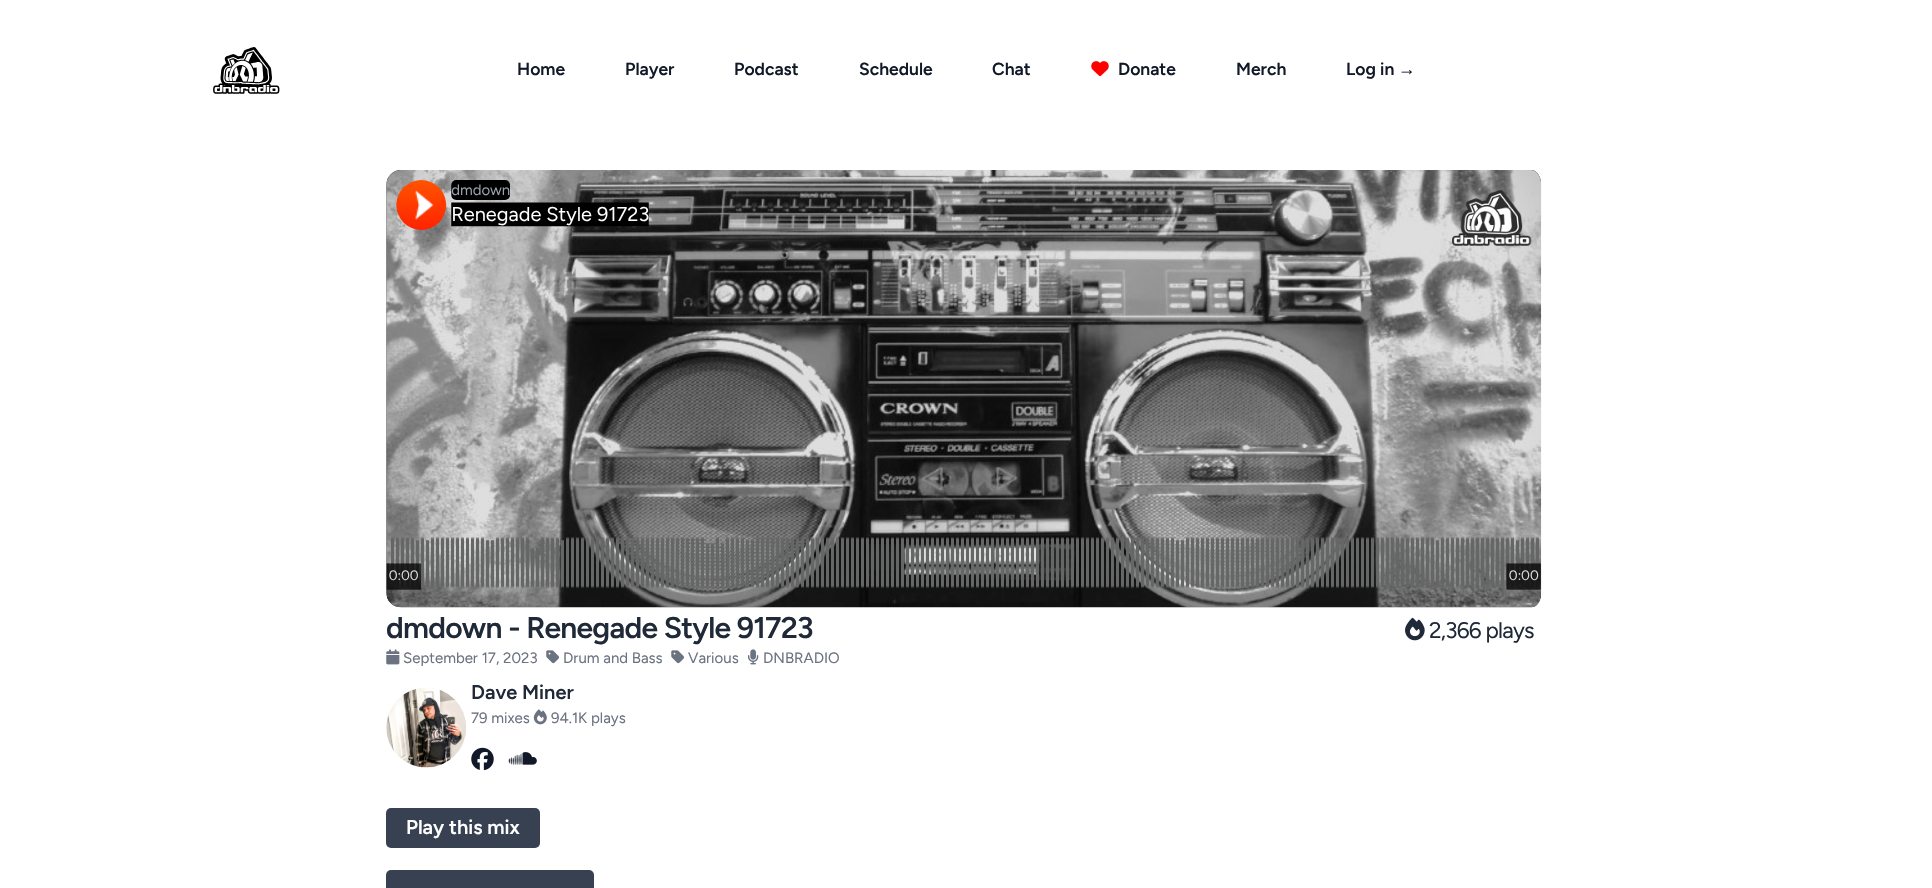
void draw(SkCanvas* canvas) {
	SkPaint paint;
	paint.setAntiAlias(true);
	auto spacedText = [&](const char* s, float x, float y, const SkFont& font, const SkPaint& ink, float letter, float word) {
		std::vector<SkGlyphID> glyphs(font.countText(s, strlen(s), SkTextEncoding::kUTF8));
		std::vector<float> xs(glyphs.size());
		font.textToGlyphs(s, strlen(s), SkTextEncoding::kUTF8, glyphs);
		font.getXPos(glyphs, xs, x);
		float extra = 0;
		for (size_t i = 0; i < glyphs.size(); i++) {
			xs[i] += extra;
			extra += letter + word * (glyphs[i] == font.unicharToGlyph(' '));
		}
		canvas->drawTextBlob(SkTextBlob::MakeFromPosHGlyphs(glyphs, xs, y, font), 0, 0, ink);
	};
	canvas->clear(0xffffffff);
	canvas->drawImageRect(SkImages::DeferredFromEncodedData(SkData::MakeFromFileName("img1.png")), SkRect::MakeXYWH(213, 47, 67, 47), SkSamplingOptions());
	SkFont f1(fontMgr->matchFamilyStyle("Figtree", SkFontStyle(600, SkFontStyle::kNormal_Width, SkFontStyle::kUpright_Slant)), 17.5);
	f1.setSubpixel(true);
	paint.setColor(0xff111827);
	canvas->drawString("Home", 517, 75, f1, paint);
	canvas->drawString("Player", 625, 75, f1, paint);
	canvas->drawString("Podcast", 734, 75, f1, paint);
	canvas->drawString("Schedule", 859, 75, f1, paint);
	canvas->drawString("Chat", 992, 75, f1, paint);
	canvas->drawImageRect(SkImages::DeferredFromEncodedData(SkData::MakeFromFileName("img2.png")), SkRect::MakeXYWH(1091, 61, 18, 16), SkSamplingOptions());
	canvas->drawString("Donate", 1118, 75, f1, paint);
	canvas->drawString("Merch", 1236, 75, f1, paint);
	canvas->drawString("Log in", 1346, 75, f1, paint);
	SkFont f2(fontMgr->matchFamilyStyle("Liberation Sans", SkFontStyle::Bold()), 17.5);
	f2.setSubpixel(true);
	canvas->drawString("→", 1398, 75, f2, paint);
	canvas->drawImageRect(SkImages::DeferredFromEncodedData(SkData::MakeFromFileName("img3.png")), SkRect::MakeXYWH(386, 170, 1156, 438), SkSamplingOptions());
	SkFont f3(fontMgr->matchFamilyStyle("Figtree", SkFontStyle(600, SkFontStyle::kNormal_Width, SkFontStyle::kUpright_Slant)), 30);
	f3.setSubpixel(true);
	paint.setColor(0xff1f2937);
	spacedText("dmdown - Renegade Style 91723", 386, 638, f3, paint, -0.75, 0);
	canvas->drawImageRect(SkImages::DeferredFromEncodedData(SkData::MakeFromFileName("img4.png")), SkRect::MakeXYWH(1405, 617, 20, 24), SkSamplingOptions());
	SkFont f4(fontMgr->matchFamilyStyle("Figtree", SkFontStyle(300, SkFontStyle::kNormal_Width, SkFontStyle::kUpright_Slant)), 22.5);
	f4.setSubpixel(true);
	spacedText("2,366 plays", 1429, 638, f4, paint, -0.75, 0);
	canvas->drawImageRect(SkImages::DeferredFromEncodedData(SkData::MakeFromFileName("img5.png")), SkRect::MakeXYWH(386, 649, 14, 16), SkSamplingOptions());
	SkFont f5(fontMgr->matchFamilyStyle("Figtree", SkFontStyle(300, SkFontStyle::kNormal_Width, SkFontStyle::kUpright_Slant)), 15);
	f5.setSubpixel(true);
	paint.setColor(0xff6b7280);
	canvas->drawString("September 17, 2023", 403, 663, f5, paint);
	canvas->drawImageRect(SkImages::DeferredFromEncodedData(SkData::MakeFromFileName("img6.png")), SkRect::MakeXYWH(546, 650, 13, 14), SkSamplingOptions());
	canvas->drawString("Drum and Bass", 563, 663, f5, paint);
	canvas->drawImageRect(SkImages::DeferredFromEncodedData(SkData::MakeFromFileName("img6.png")), SkRect::MakeXYWH(671, 650, 13, 14), SkSamplingOptions());
	canvas->drawString("Various", 688, 663, f5, paint);
	canvas->drawImageRect(SkImages::DeferredFromEncodedData(SkData::MakeFromFileName("img7.png")), SkRect::MakeXYWH(747, 649, 12, 16), SkSamplingOptions());
	canvas->drawString("DNBRADIO", 763, 663, f5, paint);
	canvas->drawImageRect(SkImages::DeferredFromEncodedData(SkData::MakeFromFileName("img8.png")), SkRect::MakeXYWH(386, 688, 80, 80), SkSamplingOptions());
	SkFont f6(fontMgr->matchFamilyStyle("Figtree", SkFontStyle(600, SkFontStyle::kNormal_Width, SkFontStyle::kUpright_Slant)), 20);
	f6.setSubpixel(true);
	paint.setColor(0xff1f2937);
	canvas->drawString("Dave Miner", 471, 699, f6, paint);
	paint.setColor(0xff6b7280);
	canvas->drawString("79 mixes", 471, 723, f5, paint);
	canvas->drawImageRect(SkImages::DeferredFromEncodedData(SkData::MakeFromFileName("img9.png")), SkRect::MakeXYWH(533, 709, 14, 16), SkSamplingOptions());
	canvas->drawString("94.1K plays", 551, 723, f5, paint);
	canvas->drawImageRect(SkImages::DeferredFromEncodedData(SkData::MakeFromFileName("img10.png")), SkRect::MakeXYWH(471, 747, 23, 24), SkSamplingOptions());
	canvas->drawImageRect(SkImages::DeferredFromEncodedData(SkData::MakeFromFileName("img11.png")), SkRect::MakeXYWH(508, 752, 29, 13), SkSamplingOptions());
	paint.setColor(0xff374151);
	canvas->drawRoundRect(SkRect::MakeXYWH(386, 808, 154, 40), 5, 5, paint);
	paint.setColor(0xffffffff);
	canvas->drawString("Play this mix", 406, 834, f6, paint);
	paint.setColor(0xff374151);
	canvas->drawRoundRect(SkRect::MakeXYWH(386, 870, 208, 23), 5, 5, paint);
}
